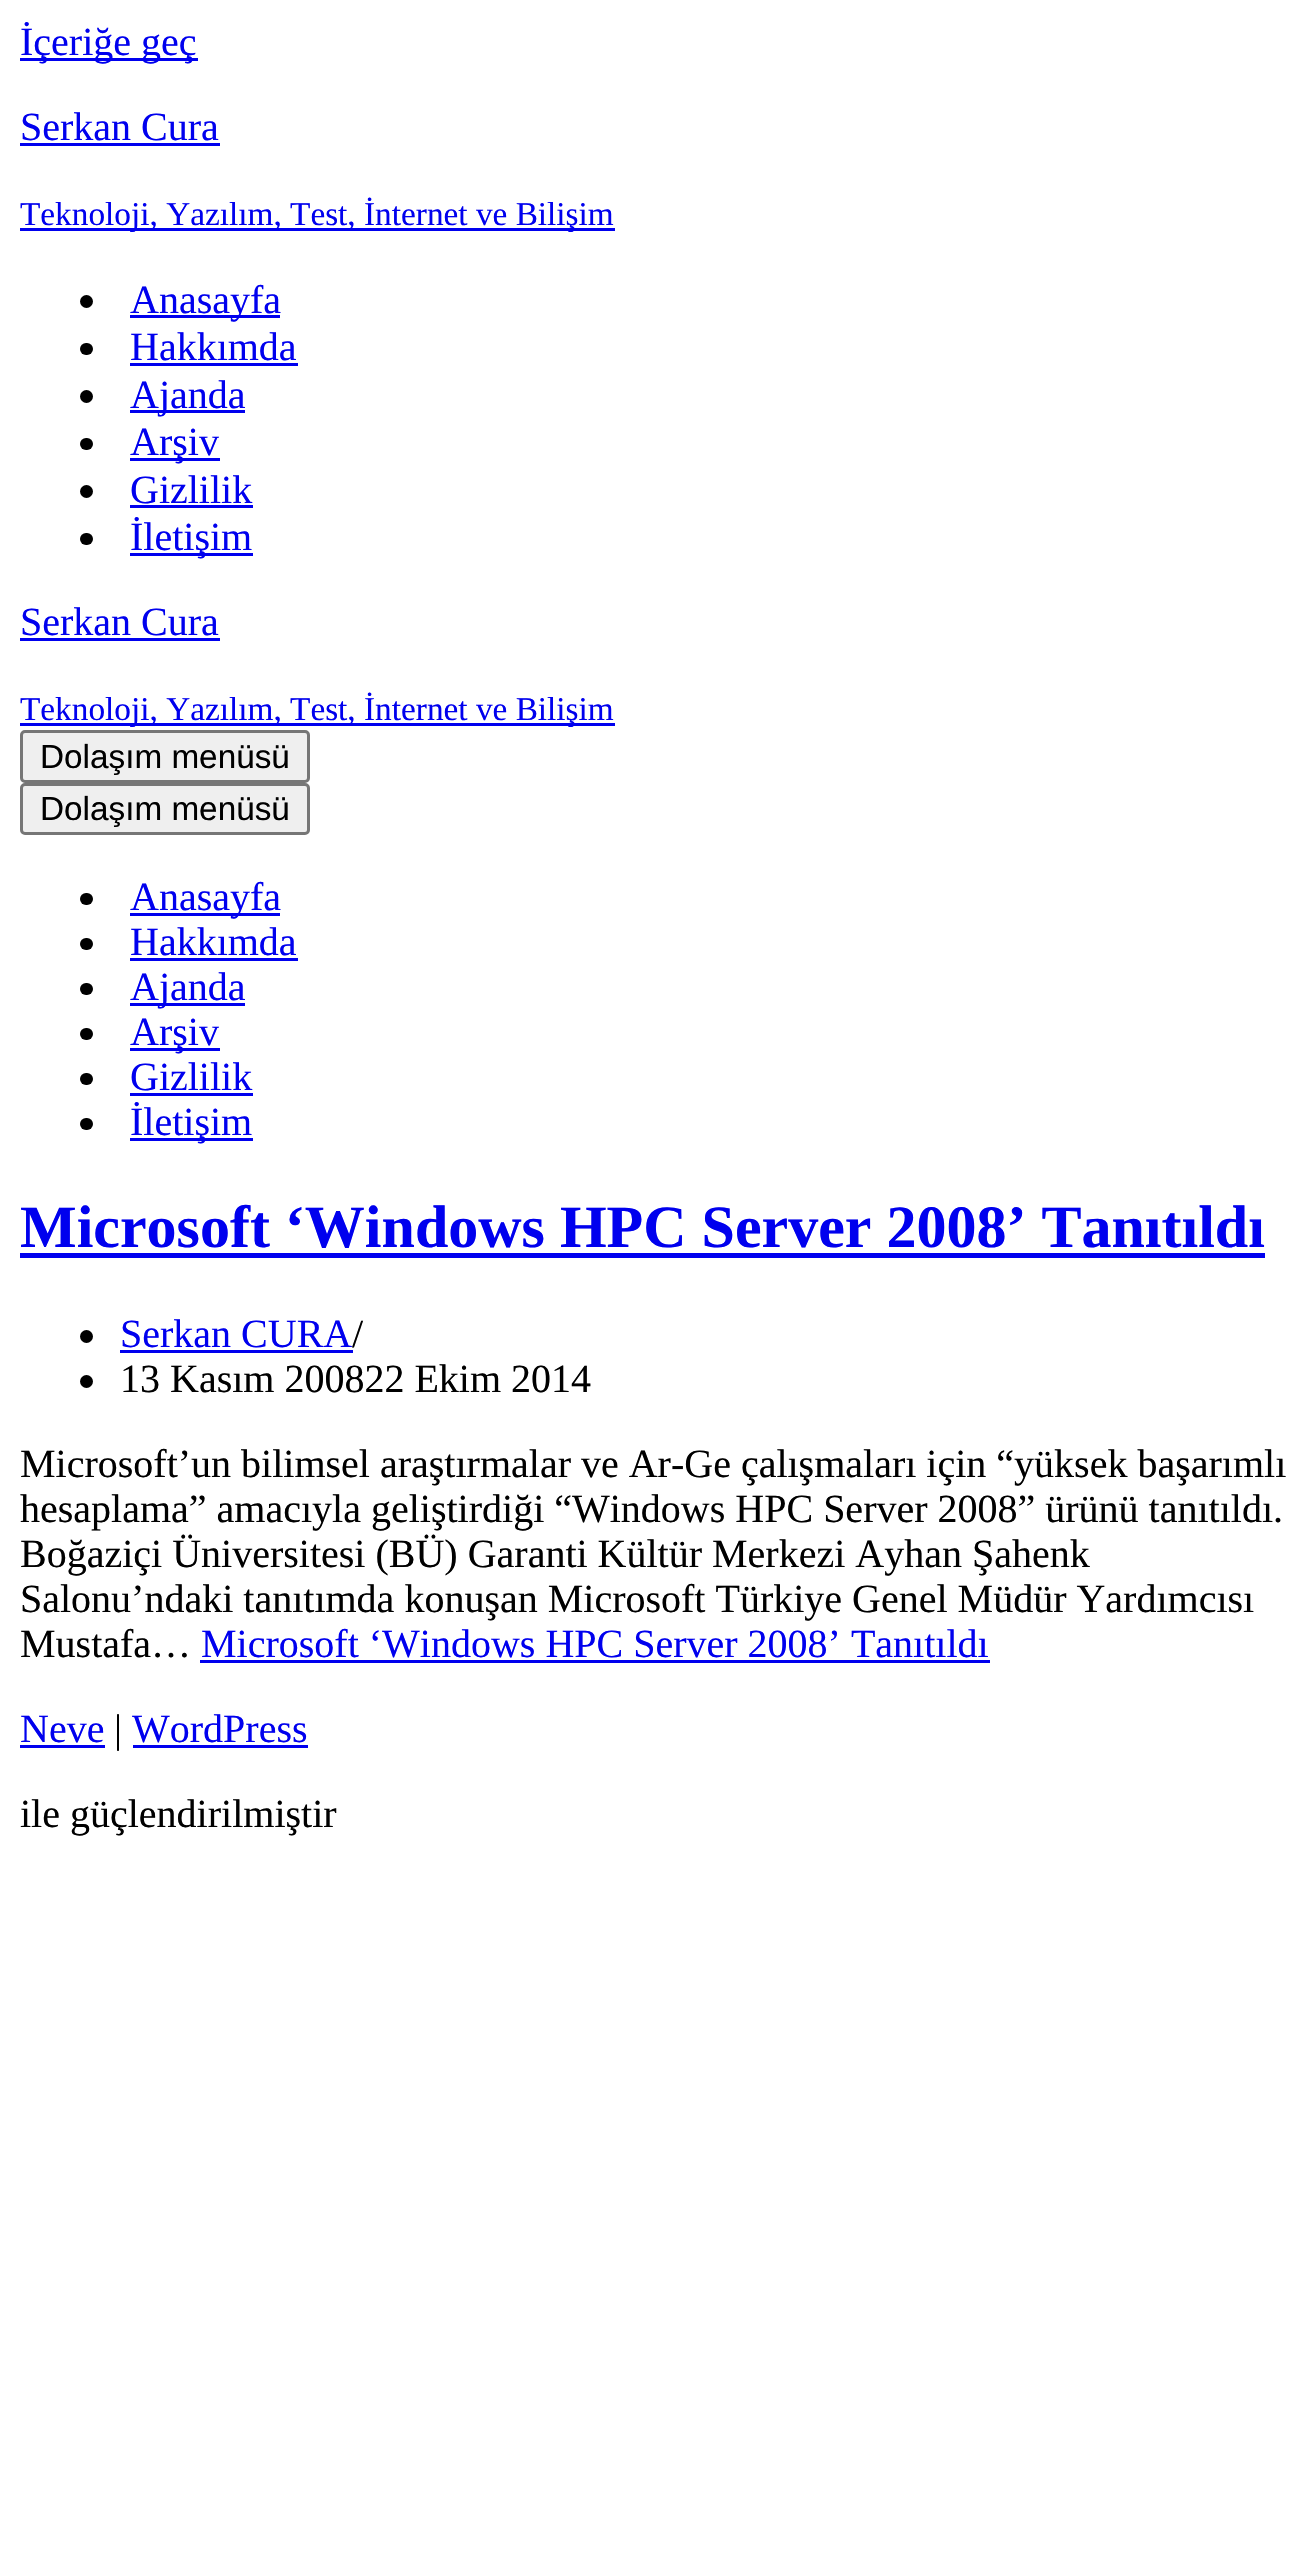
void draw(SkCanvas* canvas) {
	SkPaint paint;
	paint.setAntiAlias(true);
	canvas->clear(0xffffffff);
	paint.setColor(0xff0000ee);
	canvas->drawRect(SkRect::MakeXYWH(20, 58, 178, 3), paint);
	SkFont f1(fontMgr->matchFamilyStyle("Liberation Serif", SkFontStyle::Normal()), 40);
	f1.setSubpixel(true);
	canvas->drawString("İçeriğe geç", 20, 55, f1, paint);
	canvas->drawString("Serkan Cura", 20, 140, f1, paint);
	canvas->drawRect(SkRect::MakeXYWH(20, 143, 200, 3), paint);
	canvas->drawRect(SkRect::MakeXYWH(20, 228, 595, 3), paint);
	SkFont f2(fontMgr->matchFamilyStyle("Liberation Serif", SkFontStyle::Normal()), 33.3);
	f2.setSubpixel(true);
	canvas->drawString("Teknoloji, Yazılım, Test, İnternet ve Bilişim", 20, 225, f2, paint);
	paint.setColor(0xff000000);
	canvas->drawCircle(86.5, 301.5, 6.5, paint);
	paint.setColor(0xff0000ee);
	canvas->drawRect(SkRect::MakeXYWH(130, 315, 150, 3), paint);
	canvas->drawString("Anasayfa", 130, 313, f1, paint);
	paint.setColor(0xff000000);
	canvas->drawRoundRect(SkRect::MakeXYWH(80, 343, 13, 12), 6, 6, paint);
	paint.setColor(0xff0000ee);
	canvas->drawString("Hakkımda", 130, 360, f1, paint);
	canvas->drawRect(SkRect::MakeXYWH(130, 363, 168, 3), paint);
	paint.setColor(0xff000000);
	canvas->drawCircle(86.5, 396.5, 6.5, paint);
	paint.setColor(0xff0000ee);
	canvas->drawRect(SkRect::MakeXYWH(130, 410, 115, 3), paint);
	canvas->drawString("Ajanda", 130, 408, f1, paint);
	paint.setColor(0xff000000);
	canvas->drawRoundRect(SkRect::MakeXYWH(80, 438, 13, 12), 6, 6, paint);
	paint.setColor(0xff0000ee);
	canvas->drawRect(SkRect::MakeXYWH(130, 458, 90, 3), paint);
	canvas->drawString("Arşiv", 130, 455, f1, paint);
	paint.setColor(0xff000000);
	canvas->drawCircle(86.5, 491.5, 6.5, paint);
	paint.setColor(0xff0000ee);
	canvas->drawString("Gizlilik", 130, 503, f1, paint);
	canvas->drawRect(SkRect::MakeXYWH(130, 505, 123, 3), paint);
	paint.setColor(0xff000000);
	canvas->drawRoundRect(SkRect::MakeXYWH(80, 533, 13, 12), 6, 6, paint);
	paint.setColor(0xff0000ee);
	canvas->drawRect(SkRect::MakeXYWH(130, 553, 123, 3), paint);
	canvas->drawString("İletişim", 130, 550, f1, paint);
	canvas->drawString("Serkan Cura", 20, 635, f1, paint);
	canvas->drawRect(SkRect::MakeXYWH(20, 638, 200, 3), paint);
	canvas->drawRect(SkRect::MakeXYWH(20, 723, 595, 3), paint);
	canvas->drawString("Teknoloji, Yazılım, Test, İnternet ve Bilişim", 20, 720, f2, paint);
	paint.setColor(0xffefefef);
	canvas->drawRoundRect(SkRect::MakeXYWH(21.5, 731.5, 287, 50), 3.5, 3.5, paint);
	paint.setStroke(true);
	paint.setStrokeWidth(3);
	paint.setColor(0xff767676);
	canvas->drawRoundRect(SkRect::MakeXYWH(21.5, 731.5, 287, 50), 3.5, 3.5, paint);
	SkFont f3(fontMgr->matchFamilyStyle("Liberation Sans", SkFontStyle::Normal()), 33.3);
	f3.setSubpixel(true);
	paint.setStroke(false);
	paint.setColor(0xff000000);
	canvas->drawString("Dolaşım menüsü", 40, 768, f3, paint);
	paint.setColor(0xffefefef);
	canvas->drawRoundRect(SkRect::MakeXYWH(21.5, 784.5, 287, 49), 3.5, 3.5, paint);
	paint.setStroke(true);
	paint.setColor(0xff767676);
	canvas->drawRoundRect(SkRect::MakeXYWH(21.5, 784.5, 287, 49), 3.5, 3.5, paint);
	paint.setStroke(false);
	paint.setColor(0xff000000);
	canvas->drawString("Dolaşım menüsü", 40, 820, f3, paint);
	canvas->drawRoundRect(SkRect::MakeXYWH(80, 893, 13, 12), 6, 6, paint);
	paint.setColor(0xff0000ee);
	canvas->drawRect(SkRect::MakeXYWH(130, 913, 150, 3), paint);
	canvas->drawString("Anasayfa", 130, 910, f1, paint);
	paint.setColor(0xff000000);
	canvas->drawRoundRect(SkRect::MakeXYWH(80, 938, 13, 12), 6, 6, paint);
	paint.setColor(0xff0000ee);
	canvas->drawString("Hakkımda", 130, 955, f1, paint);
	canvas->drawRect(SkRect::MakeXYWH(130, 958, 168, 3), paint);
	paint.setColor(0xff000000);
	canvas->drawRoundRect(SkRect::MakeXYWH(80, 983, 13, 12), 6, 6, paint);
	paint.setColor(0xff0000ee);
	canvas->drawRect(SkRect::MakeXYWH(130, 1003, 115, 3), paint);
	canvas->drawString("Ajanda", 130, 1000, f1, paint);
	paint.setColor(0xff000000);
	canvas->drawRoundRect(SkRect::MakeXYWH(80, 1028, 13, 12), 6, 6, paint);
	paint.setColor(0xff0000ee);
	canvas->drawRect(SkRect::MakeXYWH(130, 1048, 90, 3), paint);
	canvas->drawString("Arşiv", 130, 1045, f1, paint);
	paint.setColor(0xff000000);
	canvas->drawRoundRect(SkRect::MakeXYWH(80, 1073, 13, 12), 6, 6, paint);
	paint.setColor(0xff0000ee);
	canvas->drawString("Gizlilik", 130, 1090, f1, paint);
	canvas->drawRect(SkRect::MakeXYWH(130, 1093, 123, 3), paint);
	paint.setColor(0xff000000);
	canvas->drawRoundRect(SkRect::MakeXYWH(80, 1118, 13, 12), 6, 6, paint);
	paint.setColor(0xff0000ee);
	canvas->drawRect(SkRect::MakeXYWH(130, 1138, 123, 3), paint);
	canvas->drawString("İletişim", 130, 1135, f1, paint);
	SkFont f4(fontMgr->matchFamilyStyle("Liberation Serif", SkFontStyle::Bold()), 60);
	f4.setSubpixel(true);
	canvas->drawString("Microsoft ‘Windows HPC Server 2008’ Tanıtıldı", 20, 1247, f4, paint);
	canvas->drawRect(SkRect::MakeXYWH(20, 1253, 1245, 5), paint);
	paint.setColor(0xff000000);
	canvas->drawCircle(86.5, 1336.5, 6.5, paint);
	paint.setColor(0xff0000ee);
	canvas->drawString("Serkan CURA", 120, 1347, f1, paint);
	canvas->drawRect(SkRect::MakeXYWH(120, 1350, 233, 3), paint);
	paint.setColor(0xff000000);
	canvas->drawString("/", 352, 1347, f1, paint);
	canvas->drawCircle(86.5, 1381.5, 6.5, paint);
	canvas->drawString("13 Kasım 200822 Ekim 2014", 120, 1392, f1, paint);
	canvas->drawString("Microsoft’un bilimsel araştırmalar ve Ar-Ge çalışmaları için “yüksek başarımlı", 20, 1477, f1, paint);
	canvas->drawString("hesaplama” amacıyla geliştirdiği “Windows HPC Server 2008” ürünü tanıtıldı.", 20, 1522, f1, paint);
	canvas->drawString("Boğaziçi Üniversitesi (BÜ) Garanti Kültür Merkezi Ayhan Şahenk", 20, 1567, f1, paint);
	canvas->drawString("Salonu’ndaki tanıtımda konuşan Microsoft Türkiye Genel Müdür Yardımcısı", 20, 1612, f1, paint);
	canvas->drawString("Mustafa…", 20, 1657, f1, paint);
	paint.setColor(0xff0000ee);
	canvas->drawString("Microsoft ‘Windows HPC Server 2008’ Tanıtıldı", 201, 1657, f1, paint);
	canvas->drawRect(SkRect::MakeXYWH(200, 1660, 790, 3), paint);
	canvas->drawString("Neve", 20, 1742, f1, paint);
	canvas->drawRect(SkRect::MakeXYWH(20, 1745, 85, 3), paint);
	paint.setColor(0xff000000);
	canvas->drawString("|", 114, 1742, f1, paint);
	paint.setColor(0xff0000ee);
	canvas->drawString("WordPress", 132, 1742, f1, paint);
	canvas->drawRect(SkRect::MakeXYWH(133, 1745, 175, 3), paint);
	paint.setColor(0xff000000);
	canvas->drawString("ile güçlendirilmiştir", 20, 1827, f1, paint);
}
